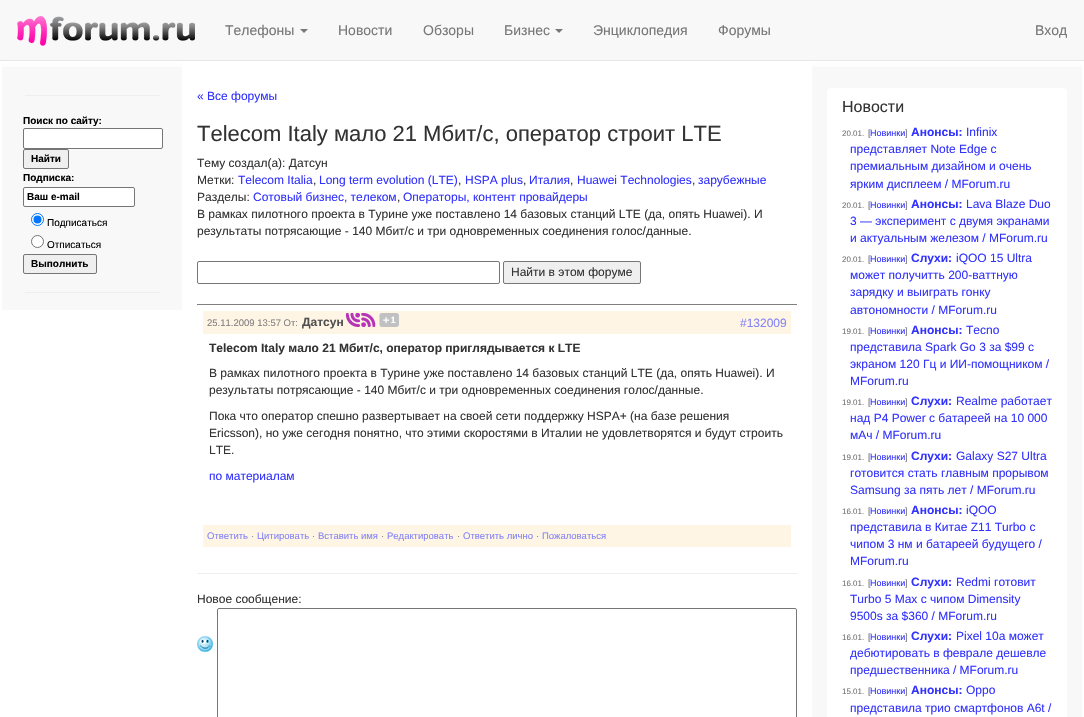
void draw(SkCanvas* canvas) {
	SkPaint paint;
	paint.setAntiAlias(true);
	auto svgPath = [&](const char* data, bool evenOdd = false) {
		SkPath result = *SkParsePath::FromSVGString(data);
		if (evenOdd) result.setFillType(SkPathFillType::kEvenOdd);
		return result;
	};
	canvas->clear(0xffffffff);
	paint.setColor(0xfff8f8f8);
	canvas->drawRect(SkRect::MakeXYWH(0, 0, 1084, 60), paint);
	paint.setColor(0xffe7e7e7);
	canvas->drawRect(SkRect::MakeXYWH(0, 60, 1084, 1), paint);
	canvas->drawImageRect(SkImages::DeferredFromEncodedData(SkData::MakeFromFileName("img1.png")), SkRect::MakeXYWH(17, 16, 178, 30), SkSamplingOptions());
	SkFont f1(fontMgr->matchFamilyStyle("Liberation Sans", SkFontStyle::Normal()), 14);
	f1.setSubpixel(true);
	paint.setColor(0xff777777);
	canvas->drawString("Телефоны", 225, 35, f1, paint);
	canvas->drawPath(svgPath("M300 29H308L304 33Z"), paint);
	canvas->drawString("Новости", 338, 35, f1, paint);
	canvas->drawString("Обзоры", 423, 35, f1, paint);
	canvas->drawString("Бизнес", 504, 35, f1, paint);
	canvas->drawPath(svgPath("M555 29H563L559 33Z"), paint);
	canvas->drawString("Энциклопедия", 593, 35, f1, paint);
	canvas->drawString("Форумы", 718, 35, f1, paint);
	canvas->drawString("Вход", 1035, 35, f1, paint);
	paint.setColor(0xfff8f8f8);
	canvas->drawRect(SkRect::MakeXYWH(2, 61, 180, 249), paint);
	canvas->drawImageRect(SkImages::DeferredFromEncodedData(SkData::MakeFromFileName("img2.png")), SkRect::MakeXYWH(2, 61, 180, 6), SkSamplingOptions());
	paint.setColor(0xffeeeeee);
	canvas->drawRect(SkRect::MakeXYWH(25, 95, 135, 1), paint);
	SkFont f2(fontMgr->matchFamilyStyle("Liberation Sans", SkFontStyle::Bold()), 10);
	f2.setSubpixel(true);
	paint.setColor(0xff000000);
	canvas->drawString("Поиск по сайту:", 23, 124, f2, paint);
	paint.setColor(0xffffffff);
	canvas->drawRoundRect(SkRect::MakeXYWH(23.5, 128.5, 139, 20), 1.5, 1.5, paint);
	paint.setStroke(true);
	paint.setStrokeWidth(1);
	paint.setColor(0xff767676);
	canvas->drawRoundRect(SkRect::MakeXYWH(23.5, 128.5, 139, 20), 1.5, 1.5, paint);
	paint.setStroke(false);
	paint.setColor(0xffefefef);
	canvas->drawRoundRect(SkRect::MakeXYWH(23.5, 149.5, 45, 19), 1.5, 1.5, paint);
	paint.setStroke(true);
	paint.setColor(0xff767676);
	canvas->drawRoundRect(SkRect::MakeXYWH(23.5, 149.5, 45, 19), 1.5, 1.5, paint);
	paint.setStroke(false);
	paint.setColor(0xff000000);
	canvas->drawString("Найти", 31, 162, f2, paint);
	canvas->drawString("Подписка:", 23, 181, f2, paint);
	paint.setColor(0xffffffff);
	canvas->drawRoundRect(SkRect::MakeXYWH(23.5, 187.5, 111, 19), 1.5, 1.5, paint);
	paint.setStroke(true);
	paint.setColor(0xff767676);
	canvas->drawRoundRect(SkRect::MakeXYWH(23.5, 187.5, 111, 19), 1.5, 1.5, paint);
	paint.setStroke(false);
	paint.setColor(0xff000000);
	canvas->drawString("Ваш e-mail", 27, 200, f2, paint);
	paint.setColor(0xffffffff);
	canvas->drawCircle(37.5, 219.5, 6, paint);
	paint.setStroke(true);
	paint.setColor(0xff0075ff);
	canvas->drawCircle(37.5, 219.5, 6, paint);
	paint.setStroke(false);
	canvas->drawCircle(37.5, 219.5, 4, paint);
	SkFont f3(fontMgr->matchFamilyStyle("Liberation Sans", SkFontStyle::Normal()), 10);
	f3.setSubpixel(true);
	paint.setColor(0xff000000);
	canvas->drawString("Подписаться", 47, 226, f3, paint);
	paint.setColor(0xffffffff);
	canvas->drawCircle(37.5, 241.5, 6, paint);
	paint.setStroke(true);
	paint.setColor(0xff767676);
	canvas->drawCircle(37.5, 241.5, 6, paint);
	paint.setStroke(false);
	paint.setColor(0xff000000);
	canvas->drawString("Отписаться", 47, 248, f3, paint);
	paint.setColor(0xffefefef);
	canvas->drawRoundRect(SkRect::MakeXYWH(23.5, 254.5, 73, 19), 1.5, 1.5, paint);
	paint.setStroke(true);
	paint.setColor(0xff767676);
	canvas->drawRoundRect(SkRect::MakeXYWH(23.5, 254.5, 73, 19), 1.5, 1.5, paint);
	paint.setStroke(false);
	paint.setColor(0xff000000);
	canvas->drawString("Выполнить", 31, 267, f2, paint);
	paint.setColor(0xffeeeeee);
	canvas->drawRect(SkRect::MakeXYWH(25, 292, 135, 1), paint);
	SkFont f4(fontMgr->matchFamilyStyle("Liberation Sans", SkFontStyle::Normal()), 12);
	f4.setSubpixel(true);
	paint.setColor(0xff3333ff);
	canvas->drawString("« Все форумы", 197, 100, f4, paint);
	SkFont f5(fontMgr->matchFamilyStyle("Liberation Sans", SkFontStyle::Normal()), 22);
	f5.setSubpixel(true);
	paint.setColor(0xff333333);
	canvas->drawString("Telecom Italy мало 21 Мбит/с, оператор строит LTE", 197, 141, f5, paint);
	canvas->drawString("Тему создал(а): Датсун", 197, 167, f4, paint);
	canvas->drawString("Метки:", 197, 184, f4, paint);
	paint.setColor(0xff3333ff);
	canvas->drawString("Telecom Italia", 238, 184, f4, paint);
	paint.setColor(0xff333333);
	canvas->drawString(",", 313, 184, f4, paint);
	paint.setColor(0xff3333ff);
	canvas->drawString("Long term evolution (LTE)", 319, 184, f4, paint);
	paint.setColor(0xff333333);
	canvas->drawString(",", 458, 184, f4, paint);
	paint.setColor(0xff3333ff);
	canvas->drawString("HSPA plus", 465, 184, f4, paint);
	paint.setColor(0xff333333);
	canvas->drawString(",", 523, 184, f4, paint);
	paint.setColor(0xff3333ff);
	canvas->drawString("Италия", 529, 184, f4, paint);
	paint.setColor(0xff333333);
	canvas->drawString(",", 570, 184, f4, paint);
	paint.setColor(0xff3333ff);
	canvas->drawString("Huawei Technologies", 577, 184, f4, paint);
	paint.setColor(0xff333333);
	canvas->drawString(",", 692, 184, f4, paint);
	paint.setColor(0xff3333ff);
	canvas->drawString("зарубежные", 698, 184, f4, paint);
	paint.setColor(0xff333333);
	canvas->drawString("Разделы:", 197, 201, f4, paint);
	paint.setColor(0xff3333ff);
	canvas->drawString("Сотовый бизнес, телеком", 253, 201, f4, paint);
	paint.setColor(0xff333333);
	canvas->drawString(",", 397, 201, f4, paint);
	paint.setColor(0xff3333ff);
	canvas->drawString("Операторы, контент провайдеры", 403, 201, f4, paint);
	paint.setColor(0xff333333);
	canvas->drawString("В рамках пилотного проекта в Турине уже поставлено 14 базовых станций LTE (да, опять Huawei). И", 197, 218, f4, paint);
	canvas->drawString("результаты потрясающие - 140 Мбит/c и три одновременных соединения голос/данные.", 197, 235, f4, paint);
	paint.setStroke(true);
	paint.setColor(0xff767676);
	canvas->drawRoundRect(SkRect::MakeXYWH(197.5, 261.5, 302, 22), 1.5, 1.5, paint);
	paint.setStroke(false);
	paint.setColor(0xffefefef);
	canvas->drawRoundRect(SkRect::MakeXYWH(503.5, 261.5, 137, 22), 1.5, 1.5, paint);
	paint.setStroke(true);
	paint.setColor(0xff767676);
	canvas->drawRoundRect(SkRect::MakeXYWH(503.5, 261.5, 137, 22), 1.5, 1.5, paint);
	paint.setStroke(false);
	paint.setColor(0xff333333);
	canvas->drawString("Найти в этом форуме", 511, 276, f4, paint);
	paint.setColor(0xff808080);
	canvas->drawRect(SkRect::MakeXYWH(197, 304, 600, 1), paint);
	paint.setColor(0xfffff5e5);
	canvas->drawRect(SkRect::MakeXYWH(203, 311, 588, 23), paint);
	SkFont f6(fontMgr->matchFamilyStyle("Liberation Sans", SkFontStyle::Normal()), 9.5);
	f6.setSubpixel(true);
	paint.setColor(0xff808080);
	canvas->drawString("25.11.2009 13:57 От:", 207, 326, f6, paint);
	SkFont f7(fontMgr->matchFamilyStyle("Liberation Sans", SkFontStyle::Bold()), 12);
	f7.setSubpixel(true);
	paint.setColor(0xff505050);
	canvas->drawString("Датсун", 302, 326, f7, paint);
	canvas->drawImageRect(SkImages::DeferredFromEncodedData(SkData::MakeFromFileName("img3.png")), SkRect::MakeXYWH(346, 313, 30, 14), SkSamplingOptions());
	canvas->drawImageRect(SkImages::DeferredFromEncodedData(SkData::MakeFromFileName("img4.png")), SkRect::MakeXYWH(379, 313, 20, 14), SkSamplingOptions());
	paint.setColor(0xff8484f4);
	canvas->drawString("#132009", 740, 327, f4, paint);
	paint.setColor(0xff333333);
	canvas->drawString("Telecom Italy мало 21 Мбит/с, оператор приглядывается к LTE", 209, 352, f7, paint);
	canvas->drawString("В рамках пилотного проекта в Турине уже поставлено 14 базовых станций LTE (да, опять Huawei). И", 209, 377, f4, paint);
	canvas->drawString("результаты потрясающие - 140 Мбит/c и три одновременных соединения голос/данные.", 209, 394, f4, paint);
	canvas->drawString("Пока что оператор спешно развертывает на своей сети поддержку HSPA+ (на базе решения", 209, 420, f4, paint);
	canvas->drawString("Ericsson), но уже сегодня понятно, что этими скоростями в Италии не удовлетворятся и будут строить", 209, 437, f4, paint);
	canvas->drawString("LTE.", 209, 454, f4, paint);
	paint.setColor(0xff3333ff);
	canvas->drawString("по материалам", 209, 480, f4, paint);
	paint.setColor(0xfffff5e5);
	canvas->drawRect(SkRect::MakeXYWH(203, 525, 588, 22), paint);
	paint.setColor(0xff8484f4);
	canvas->drawString("Ответить", 207, 539, f6, paint);
	paint.setColor(0xff808080);
	canvas->drawString("·", 251, 539, f6, paint);
	paint.setColor(0xff8484f4);
	canvas->drawString("Цитировать", 257, 539, f6, paint);
	paint.setColor(0xff808080);
	canvas->drawString("·", 312, 539, f6, paint);
	paint.setColor(0xff8484f4);
	canvas->drawString("Вставить имя", 318, 539, f6, paint);
	paint.setColor(0xff808080);
	canvas->drawString("·", 381, 539, f6, paint);
	paint.setColor(0xff8484f4);
	canvas->drawString("Редактировать", 387, 539, f6, paint);
	paint.setColor(0xff808080);
	canvas->drawString("·", 457, 539, f6, paint);
	paint.setColor(0xff8484f4);
	canvas->drawString("Ответить лично", 463, 539, f6, paint);
	paint.setColor(0xff808080);
	canvas->drawString("·", 536, 539, f6, paint);
	paint.setColor(0xff8484f4);
	canvas->drawString("Пожаловаться", 542, 539, f6, paint);
	paint.setColor(0xffeeeeee);
	canvas->drawRect(SkRect::MakeXYWH(197, 573, 600, 1), paint);
	paint.setColor(0xff333333);
	canvas->drawString("Новое сообщение:", 197, 603, f4, paint);
	canvas->drawImageRect(SkImages::DeferredFromEncodedData(SkData::MakeFromFileName("img5.png")), SkRect::MakeXYWH(197, 636, 16, 16), SkSamplingOptions());
	paint.setStroke(true);
	paint.setColor(0xff767676);
	canvas->drawRoundRect(SkRect::MakeXYWH(217.5, 608.5, 579, 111), 1.5, 1.5, paint);
	paint.setStroke(false);
	paint.setColor(0xfff8f8f8);
	canvas->drawRect(SkRect::MakeXYWH(812, 61, 270, 656), paint);
	canvas->drawImageRect(SkImages::DeferredFromEncodedData(SkData::MakeFromFileName("img6.png")), SkRect::MakeXYWH(812, 61, 270, 6), SkSamplingOptions());
	paint.setColor(0xffffffff);
	canvas->drawRoundRect(SkRect::MakeXYWH(827, 88, 240, 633), 4, 4, paint);
	SkFont f8(fontMgr->matchFamilyStyle("Liberation Sans", SkFontStyle::Normal()), 16);
	f8.setSubpixel(true);
	paint.setColor(0xff333333);
	canvas->drawString("Новости", 842, 112, f8, paint);
	SkFont f9(fontMgr->matchFamilyStyle("Liberation Sans", SkFontStyle::Normal()), 8);
	f9.setSubpixel(true);
	paint.setColor(0xff707070);
	canvas->drawString("20.01.", 842, 136, f9, paint);
	SkFont f10(fontMgr->matchFamilyStyle("Liberation Sans", SkFontStyle::Normal()), 9);
	f10.setSubpixel(true);
	canvas->drawString("[", 868, 136, f10, paint);
	paint.setColor(0xff3333ff);
	canvas->drawString("Новинки", 870, 136, f10, paint);
	paint.setColor(0xff707070);
	canvas->drawString("]", 905, 136, f10, paint);
	paint.setColor(0xff3333ff);
	canvas->drawString("Анонсы:", 911, 136, f7, paint);
	canvas->drawString("Infinix", 966, 136, f4, paint);
	canvas->drawString("представляет Note Edge с", 850, 153, f4, paint);
	canvas->drawString("премиальным дизайном и очень", 850, 170, f4, paint);
	canvas->drawString("ярким дисплеем / MForum.ru", 850, 188, f4, paint);
	paint.setColor(0xff707070);
	canvas->drawString("20.01.", 842, 208, f9, paint);
	canvas->drawString("[", 868, 208, f10, paint);
	paint.setColor(0xff3333ff);
	canvas->drawString("Новинки", 870, 208, f10, paint);
	paint.setColor(0xff707070);
	canvas->drawString("]", 905, 208, f10, paint);
	paint.setColor(0xff3333ff);
	canvas->drawString("Анонсы:", 911, 208, f7, paint);
	canvas->drawString("Lava Blaze Duo", 966, 208, f4, paint);
	canvas->drawString("3 — эксперимент с двумя экранами", 850, 225, f4, paint);
	canvas->drawString("и актуальным железом / MForum.ru", 850, 242, f4, paint);
	paint.setColor(0xff707070);
	canvas->drawString("20.01.", 842, 262, f9, paint);
	canvas->drawString("[", 868, 262, f10, paint);
	paint.setColor(0xff3333ff);
	canvas->drawString("Новинки", 870, 262, f10, paint);
	paint.setColor(0xff707070);
	canvas->drawString("]", 905, 262, f10, paint);
	paint.setColor(0xff3333ff);
	canvas->drawString("Слухи:", 911, 262, f7, paint);
	canvas->drawString("iQOO 15 Ultra", 956, 262, f4, paint);
	canvas->drawString("может получитть 200-ваттную", 850, 279, f4, paint);
	canvas->drawString("зарядку и выиграть гонку", 850, 296, f4, paint);
	canvas->drawString("автономности / MForum.ru", 850, 314, f4, paint);
	paint.setColor(0xff707070);
	canvas->drawString("19.01.", 842, 334, f9, paint);
	canvas->drawString("[", 868, 334, f10, paint);
	paint.setColor(0xff3333ff);
	canvas->drawString("Новинки", 870, 334, f10, paint);
	paint.setColor(0xff707070);
	canvas->drawString("]", 905, 334, f10, paint);
	paint.setColor(0xff3333ff);
	canvas->drawString("Анонсы:", 911, 334, f7, paint);
	canvas->drawString("Tecno", 966, 334, f4, paint);
	canvas->drawString("представила Spark Go 3 за $99 с", 850, 351, f4, paint);
	canvas->drawString("экраном 120 Гц и ИИ-помощником /", 850, 368, f4, paint);
	canvas->drawString("MForum.ru", 850, 385, f4, paint);
	paint.setColor(0xff707070);
	canvas->drawString("19.01.", 842, 405, f9, paint);
	canvas->drawString("[", 868, 405, f10, paint);
	paint.setColor(0xff3333ff);
	canvas->drawString("Новинки", 870, 405, f10, paint);
	paint.setColor(0xff707070);
	canvas->drawString("]", 905, 405, f10, paint);
	paint.setColor(0xff3333ff);
	canvas->drawString("Слухи:", 911, 405, f7, paint);
	canvas->drawString("Realme работает", 956, 405, f4, paint);
	canvas->drawString("над P4 Power с батареей на 10 000", 850, 422, f4, paint);
	canvas->drawString("мАч / MForum.ru", 850, 439, f4, paint);
	paint.setColor(0xff707070);
	canvas->drawString("19.01.", 842, 460, f9, paint);
	canvas->drawString("[", 868, 460, f10, paint);
	paint.setColor(0xff3333ff);
	canvas->drawString("Новинки", 870, 460, f10, paint);
	paint.setColor(0xff707070);
	canvas->drawString("]", 905, 460, f10, paint);
	paint.setColor(0xff3333ff);
	canvas->drawString("Слухи:", 911, 460, f7, paint);
	canvas->drawString("Galaxy S27 Ultra", 956, 460, f4, paint);
	canvas->drawString("готовится стать главным прорывом", 850, 477, f4, paint);
	canvas->drawString("Samsung за пять лет / MForum.ru", 850, 494, f4, paint);
	paint.setColor(0xff707070);
	canvas->drawString("16.01.", 842, 514, f9, paint);
	canvas->drawString("[", 868, 514, f10, paint);
	paint.setColor(0xff3333ff);
	canvas->drawString("Новинки", 870, 514, f10, paint);
	paint.setColor(0xff707070);
	canvas->drawString("]", 905, 514, f10, paint);
	paint.setColor(0xff3333ff);
	canvas->drawString("Анонсы:", 911, 514, f7, paint);
	canvas->drawString("iQOO", 966, 514, f4, paint);
	canvas->drawString("представила в Китае Z11 Turbo с", 850, 531, f4, paint);
	canvas->drawString("чипом 3 нм и батареей будущего /", 850, 548, f4, paint);
	canvas->drawString("MForum.ru", 850, 565, f4, paint);
	paint.setColor(0xff707070);
	canvas->drawString("16.01.", 842, 586, f9, paint);
	canvas->drawString("[", 868, 586, f10, paint);
	paint.setColor(0xff3333ff);
	canvas->drawString("Новинки", 870, 586, f10, paint);
	paint.setColor(0xff707070);
	canvas->drawString("]", 905, 586, f10, paint);
	paint.setColor(0xff3333ff);
	canvas->drawString("Слухи:", 911, 586, f7, paint);
	canvas->drawString("Redmi готовит", 956, 586, f4, paint);
	canvas->drawString("Turbo 5 Max с чипом Dimensity", 850, 603, f4, paint);
	canvas->drawString("9500s за $360 / MForum.ru", 850, 620, f4, paint);
	paint.setColor(0xff707070);
	canvas->drawString("16.01.", 842, 640, f9, paint);
	canvas->drawString("[", 868, 640, f10, paint);
	paint.setColor(0xff3333ff);
	canvas->drawString("Новинки", 870, 640, f10, paint);
	paint.setColor(0xff707070);
	canvas->drawString("]", 905, 640, f10, paint);
	paint.setColor(0xff3333ff);
	canvas->drawString("Слухи:", 911, 640, f7, paint);
	canvas->drawString("Pixel 10a может", 956, 640, f4, paint);
	canvas->drawString("дебютировать в феврале дешевле", 850, 657, f4, paint);
	canvas->drawString("предшественника / MForum.ru", 850, 674, f4, paint);
	paint.setColor(0xff707070);
	canvas->drawString("15.01.", 842, 694, f9, paint);
	canvas->drawString("[", 868, 694, f10, paint);
	paint.setColor(0xff3333ff);
	canvas->drawString("Новинки", 870, 694, f10, paint);
	paint.setColor(0xff707070);
	canvas->drawString("]", 905, 694, f10, paint);
	paint.setColor(0xff3333ff);
	canvas->drawString("Анонсы:", 911, 694, f7, paint);
	canvas->drawString("Oppo", 966, 694, f4, paint);
	canvas->drawString("представила трио смартфонов A6t /", 850, 712, f4, paint);
}
